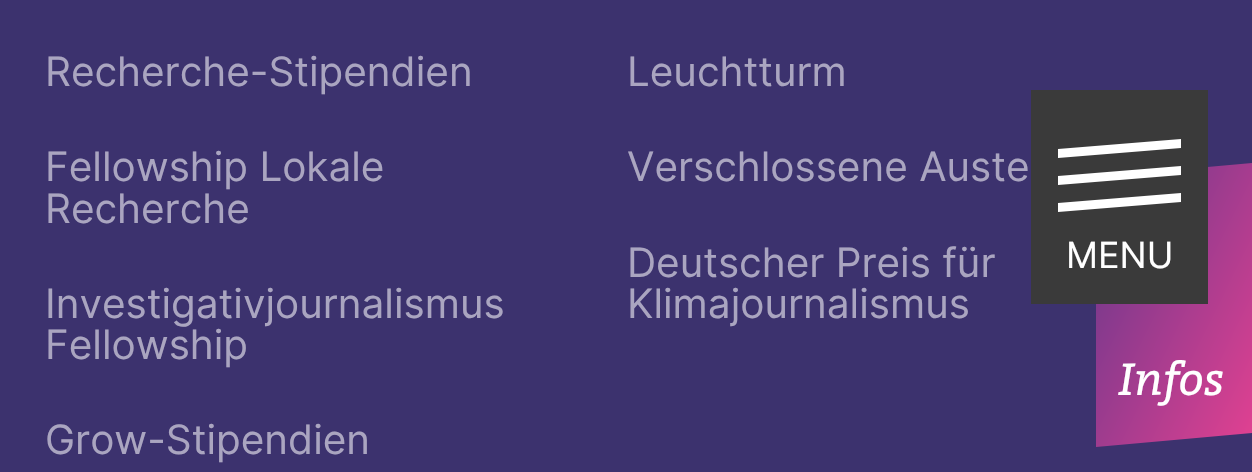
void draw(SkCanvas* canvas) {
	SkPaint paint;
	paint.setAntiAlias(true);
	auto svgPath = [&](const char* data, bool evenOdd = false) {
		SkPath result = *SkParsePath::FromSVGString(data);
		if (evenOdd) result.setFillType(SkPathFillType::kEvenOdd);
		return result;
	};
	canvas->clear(0xff3c326e);
	SkFont f1(fontMgr->matchFamilyStyle("Inter", SkFontStyle::Normal()), 40.5);
	f1.setSubpixel(true);
	paint.setColor(0xffaaa5c0);
	canvas->drawString("Recherche-Stipendien", 45, 86, f1, paint);
	canvas->drawString("Fellowship Lokale", 45, 181, f1, paint);
	canvas->drawString("Recherche", 45, 223, f1, paint);
	canvas->drawString("Investigativjournalismus", 45, 318, f1, paint);
	canvas->drawString("Fellowship", 45, 359, f1, paint);
	canvas->drawString("Grow-Stipendien", 45, 454, f1, paint);
	canvas->drawString("Leuchtturm", 627, 86, f1, paint);
	canvas->drawString("Verschlossene Auste", 627, 181, f1, paint);
	canvas->drawString("Deutscher Preis für", 627, 277, f1, paint);
	canvas->drawString("Klimajournalismus", 627, 318, f1, paint);
	{
		const SkColor colors[] = {0xff64378c, 0xffe14191};
		const float stops[] = {0, 1};
		const SkPoint ends[] = {{1057, 247}, {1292, 363}};
		paint.setShader(SkGradientShader::MakeLinear(ends, colors, stops, 2, SkTileMode::kClamp));
		paint.setAlpha(255);
	}
	canvas->drawPath(svgPath("M1096 177L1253 163V433L1096 447Z"), paint);
	paint.setShader(nullptr);
	paint.setColor(0xff3a3a3a);
	canvas->drawRect(SkRect::MakeXYWH(1031, 90, 177, 214), paint);
	paint.setColor(0xffffffff);
	canvas->drawPath(svgPath("M1058 149L1181 139V148L1058 158Z"), paint);
	canvas->drawPath(svgPath("M1058 176L1181 166V175L1058 185Z"), paint);
	canvas->drawPath(svgPath("M1058 203L1181 193V202L1058 212Z"), paint);
	SkFont f2(fontMgr->matchFamilyStyle("Inter", SkFontStyle::Normal()), 36);
	f2.setSubpixel(true);
	canvas->drawString("MENU", 1066, 268, f2, paint);
	SkFont f3(fontMgr->matchFamilyStyle("Bitter", SkFontStyle::Italic()), 45);
	f3.setSubpixel(true);
	canvas->drawString("Infos", 1118, 395, f3, paint);
}
